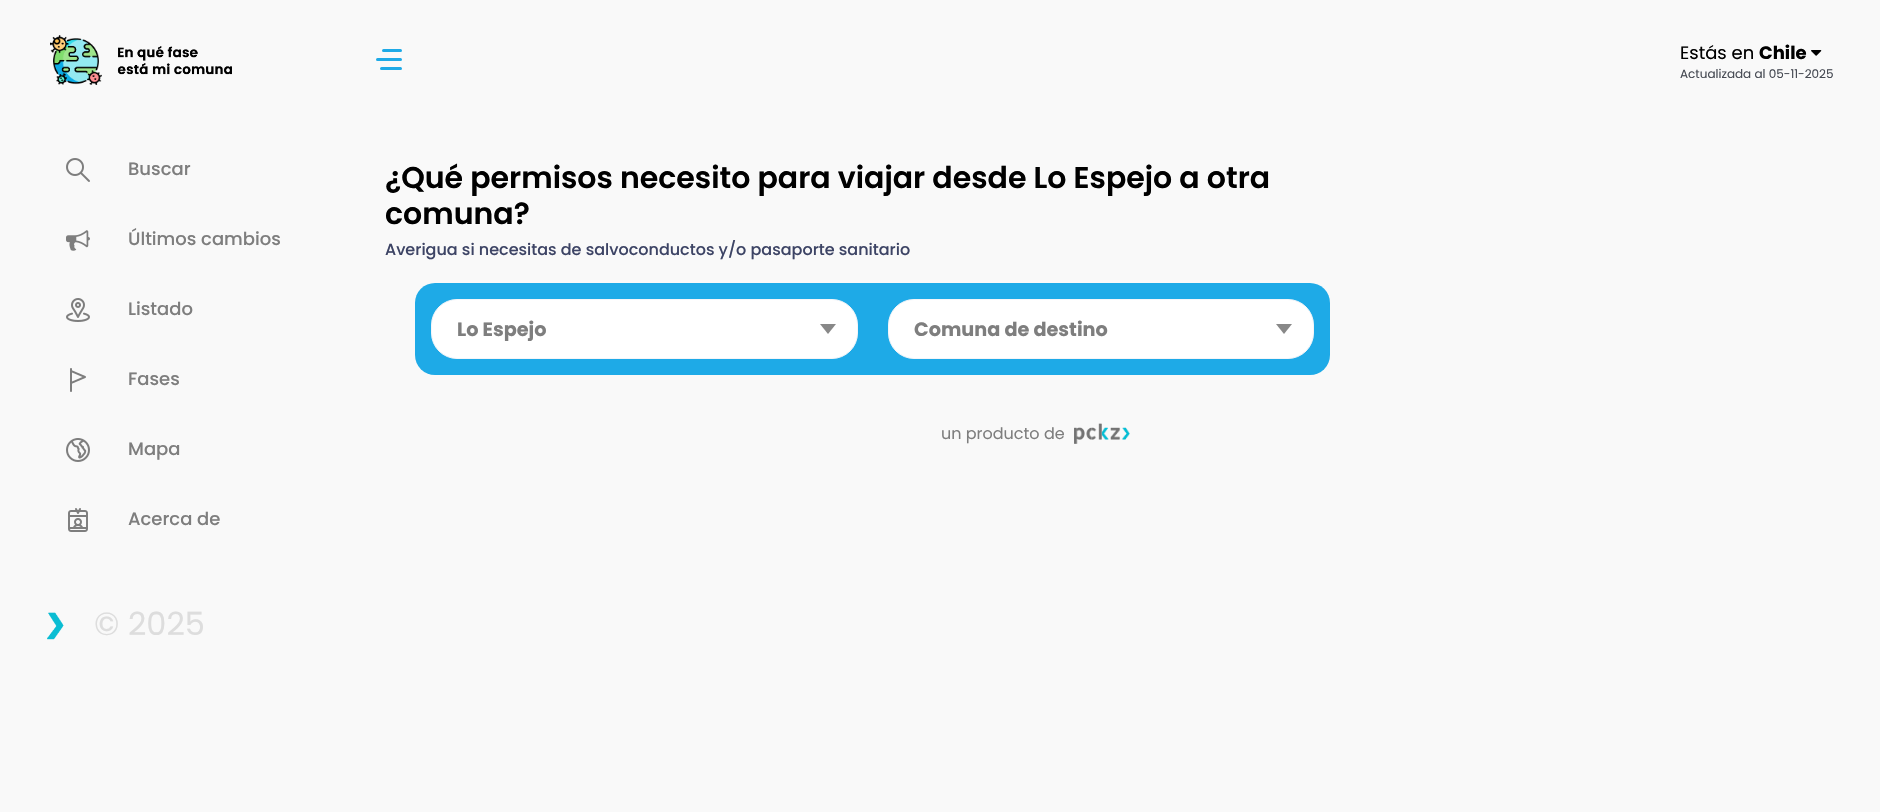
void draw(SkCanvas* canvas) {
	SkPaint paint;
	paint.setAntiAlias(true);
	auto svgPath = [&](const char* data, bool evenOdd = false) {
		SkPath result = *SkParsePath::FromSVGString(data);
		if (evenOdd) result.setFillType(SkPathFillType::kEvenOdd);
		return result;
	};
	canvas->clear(0xfff9f9f9);
	canvas->drawImageRect(SkImages::DeferredFromEncodedData(SkData::MakeFromFileName("img1.png")), SkRect::MakeXYWH(50, 35, 52, 50), SkSamplingOptions());
	canvas->drawImageRect(SkImages::DeferredFromEncodedData(SkData::MakeFromFileName("img2.png")), SkRect::MakeXYWH(117, 46, 115, 29), SkSamplingOptions());
	paint.setColor(0xff1eaae7);
	canvas->drawRoundRect(SkRect::MakeXYWH(382, 49, 20, 3), 1.5, 1.5, paint);
	canvas->drawRoundRect(SkRect::MakeXYWH(376, 58, 26, 3), 1.5, 1.5, paint);
	canvas->drawRoundRect(SkRect::MakeXYWH(380, 67, 22, 3), 1.5, 1.5, paint);
	SkFont f1(fontMgr->matchFamilyStyle("Poppins", SkFontStyle::Normal()), 18);
	f1.setSubpixel(true);
	paint.setColor(0xff000000);
	canvas->drawString("Estás en", 1680, 59, f1, paint);
	SkFont f2(fontMgr->matchFamilyStyle("Poppins", SkFontStyle::Bold()), 18);
	f2.setSubpixel(true);
	canvas->drawString("Chile", 1759, 59, f2, paint);
	canvas->drawImageRect(SkImages::DeferredFromEncodedData(SkData::MakeFromFileName("img3.png")), SkRect::MakeXYWH(1811, 50, 11, 6), SkSamplingOptions());
	SkFont f3(fontMgr->matchFamilyStyle("Poppins", SkFontStyle::Normal()), 12);
	f3.setSubpixel(true);
	paint.setColor(0xff464a53);
	canvas->drawString("Actualizada al 05-11-2025", 1680, 78, f3, paint);
	canvas->drawImageRect(SkImages::DeferredFromEncodedData(SkData::MakeFromFileName("img4.png")), SkRect::MakeXYWH(66, 158, 24, 24), SkSamplingOptions());
	SkFont f4(fontMgr->matchFamilyStyle("Poppins", SkFontStyle(500, SkFontStyle::kNormal_Width, SkFontStyle::kUpright_Slant)), 18);
	f4.setSubpixel(true);
	paint.setColor(0xff7e7e7e);
	canvas->drawString("Buscar", 128, 175, f4, paint);
	canvas->drawImageRect(SkImages::DeferredFromEncodedData(SkData::MakeFromFileName("img5.png")), SkRect::MakeXYWH(66, 230, 24, 21), SkSamplingOptions());
	canvas->drawString("Últimos cambios", 128, 245, f4, paint);
	canvas->drawImageRect(SkImages::DeferredFromEncodedData(SkData::MakeFromFileName("img6.png")), SkRect::MakeXYWH(66, 298, 24, 24), SkSamplingOptions());
	canvas->drawString("Listado", 128, 315, f4, paint);
	canvas->drawImageRect(SkImages::DeferredFromEncodedData(SkData::MakeFromFileName("img7.png")), SkRect::MakeXYWH(70, 368, 16, 24), SkSamplingOptions());
	canvas->drawString("Fases", 128, 385, f4, paint);
	canvas->drawImageRect(SkImages::DeferredFromEncodedData(SkData::MakeFromFileName("img8.png")), SkRect::MakeXYWH(66, 438, 24, 24), SkSamplingOptions());
	canvas->drawString("Mapa", 128, 455, f4, paint);
	canvas->drawImageRect(SkImages::DeferredFromEncodedData(SkData::MakeFromFileName("img9.png")), SkRect::MakeXYWH(68, 508, 20, 24), SkSamplingOptions());
	canvas->drawString("Acerca de", 128, 525, f4, paint);
	canvas->drawImageRect(SkImages::DeferredFromEncodedData(SkData::MakeFromFileName("img10.png")), SkRect::MakeXYWH(47, 612, 17, 28), SkSamplingOptions());
	SkFont f5(fontMgr->matchFamilyStyle("Poppins", SkFontStyle::Normal()), 32);
	f5.setSubpixel(true);
	paint.setColor(0xffdddddd);
	canvas->drawString("© 2025", 94, 635, f5, paint);
	SkFont f6(fontMgr->matchFamilyStyle("Poppins", SkFontStyle(600, SkFontStyle::kNormal_Width, SkFontStyle::kUpright_Slant)), 30);
	f6.setSubpixel(true);
	paint.setColor(0xff000000);
	canvas->drawString("¿Qué permisos necesito para viajar desde Lo Espejo a otra", 385, 188, f6, paint);
	canvas->drawString("comuna?", 385, 224, f6, paint);
	SkFont f7(fontMgr->matchFamilyStyle("Poppins", SkFontStyle(500, SkFontStyle::kNormal_Width, SkFontStyle::kUpright_Slant)), 16);
	f7.setSubpixel(true);
	paint.setColor(0xff3d4465);
	canvas->drawString("Averigua si necesitas de salvoconductos y/o pasaporte sanitario", 385, 255, f7, paint);
	paint.setColor(0xff1eaae7);
	canvas->drawRoundRect(SkRect::MakeXYWH(415, 283, 915, 92), 20, 20, paint);
	paint.setColor(0xffffffff);
	canvas->drawRoundRect(SkRect::MakeXYWH(431.5, 299.5, 426, 59), 25.5, 25.5, paint);
	paint.setStroke(true);
	paint.setStrokeWidth(1);
	paint.setColor(0xfff4f5f9);
	canvas->drawRoundRect(SkRect::MakeXYWH(431.5, 299.5, 426, 59), 25.5, 25.5, paint);
	SkFont f8(fontMgr->matchFamilyStyle("Poppins", SkFontStyle::Bold()), 19.25);
	f8.setSubpixel(true);
	paint.setStroke(false);
	paint.setColor(0xff7e7e7e);
	canvas->drawString("Lo Espejo", 457, 336, f8, paint);
	paint.setColor(0xff888888);
	canvas->drawPath(svgPath("M820 324H836L828 334Z"), paint);
	paint.setColor(0xffffffff);
	canvas->drawRoundRect(SkRect::MakeXYWH(888.5, 299.5, 425, 59), 25.5, 25.5, paint);
	paint.setStroke(true);
	paint.setColor(0xfff4f5f9);
	canvas->drawRoundRect(SkRect::MakeXYWH(888.5, 299.5, 425, 59), 25.5, 25.5, paint);
	paint.setStroke(false);
	paint.setColor(0xff7e7e7e);
	canvas->drawString("Comuna de destino", 914, 336, f8, paint);
	paint.setColor(0xff888888);
	canvas->drawPath(svgPath("M1276 324H1292L1284 334Z"), paint);
	SkFont f9(fontMgr->matchFamilyStyle("Poppins", SkFontStyle::Normal()), 16);
	f9.setSubpixel(true);
	paint.setColor(0xff7e7e7e);
	canvas->drawString("un producto de", 941, 439, f9, paint);
	canvas->drawImageRect(SkImages::DeferredFromEncodedData(SkData::MakeFromFileName("img11.png")), SkRect::MakeXYWH(1074, 423, 56, 21), SkSamplingOptions());
}
